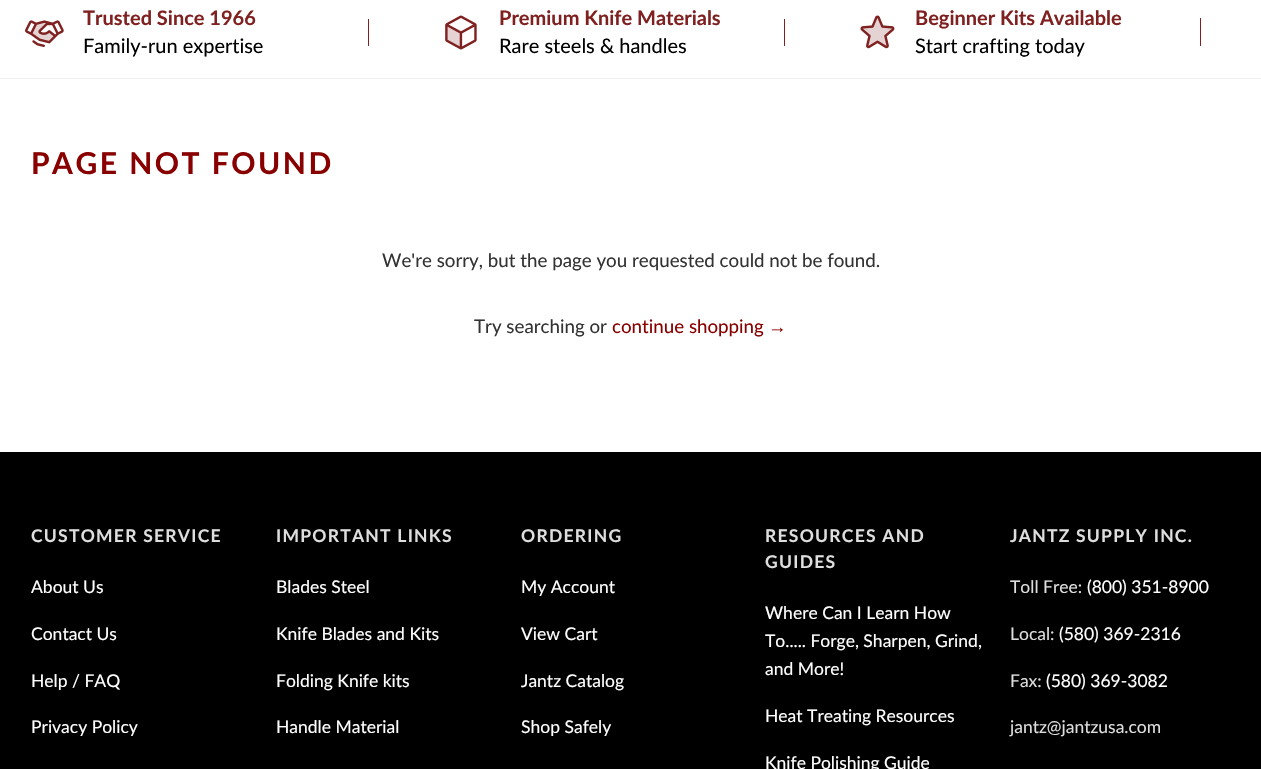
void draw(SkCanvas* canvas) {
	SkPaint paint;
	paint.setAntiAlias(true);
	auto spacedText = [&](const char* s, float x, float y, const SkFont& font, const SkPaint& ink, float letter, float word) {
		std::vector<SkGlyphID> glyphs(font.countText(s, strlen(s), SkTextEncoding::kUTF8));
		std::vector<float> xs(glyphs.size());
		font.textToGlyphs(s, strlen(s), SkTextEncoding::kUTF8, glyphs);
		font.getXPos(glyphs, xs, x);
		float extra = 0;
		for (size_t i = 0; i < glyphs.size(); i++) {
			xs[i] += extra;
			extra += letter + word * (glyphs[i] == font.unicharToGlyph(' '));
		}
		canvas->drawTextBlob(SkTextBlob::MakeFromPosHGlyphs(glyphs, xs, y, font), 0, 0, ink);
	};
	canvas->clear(0xffffffff);
	paint.setColor(0xffeeeeee);
	canvas->drawRect(SkRect::MakeXYWH(0, 78, 1261, 1), paint);
	canvas->drawImageRect(SkImages::DeferredFromEncodedData(SkData::MakeFromFileName("img1.png")), SkRect::MakeXYWH(25, 20, 39, 27), SkSamplingOptions());
	SkFont f1(fontMgr->matchFamilyStyle("Lato", SkFontStyle::Bold()), 20);
	f1.setSubpixel(true);
	paint.setColor(0xff7f2121);
	canvas->drawString("Trusted Since 1966", 83, 25, f1, paint);
	SkFont f2(fontMgr->matchFamilyStyle("Lato", SkFontStyle::Normal()), 20);
	f2.setSubpixel(true);
	paint.setColor(0xff000000);
	canvas->drawString("Family-run expertise", 83, 53, f2, paint);
	paint.setColor(0xff7f2121);
	canvas->drawRect(SkRect::MakeXYWH(368, 19, 1, 27), paint);
	canvas->drawImageRect(SkImages::DeferredFromEncodedData(SkData::MakeFromFileName("img2.png")), SkRect::MakeXYWH(445, 15, 32, 35), SkSamplingOptions());
	canvas->drawString("Premium Knife Materials", 499, 25, f1, paint);
	paint.setColor(0xff000000);
	canvas->drawString("Rare steels & handles", 499, 53, f2, paint);
	paint.setColor(0xff7f2121);
	canvas->drawRect(SkRect::MakeXYWH(784, 19, 1, 27), paint);
	canvas->drawImageRect(SkImages::DeferredFromEncodedData(SkData::MakeFromFileName("img3.png")), SkRect::MakeXYWH(860, 15, 35, 34), SkSamplingOptions());
	canvas->drawString("Beginner Kits Available", 915, 25, f1, paint);
	paint.setColor(0xff000000);
	canvas->drawString("Start crafting today", 915, 53, f2, paint);
	paint.setColor(0xff7f2121);
	canvas->drawRect(SkRect::MakeXYWH(1200, 18, 1, 28), paint);
	SkFont f3(fontMgr->matchFamilyStyle("Lato", SkFontStyle::Bold()), 30);
	f3.setSubpixel(true);
	paint.setColor(0xff880000);
	spacedText("PAGE NOT FOUND", 31, 174, f3, paint, 2.5, 0);
	SkFont f4(fontMgr->matchFamilyStyle("Lato", SkFontStyle::Normal()), 18.75);
	f4.setSubpixel(true);
	paint.setColor(0xff333333);
	canvas->drawString("We're sorry, but the page you requested could not be found.", 382, 267, f4, paint);
	canvas->drawString("Try searching or", 474, 333, f4, paint);
	paint.setColor(0xff880000);
	canvas->drawString("continue shopping", 612, 333, f4, paint);
	SkFont f5(fontMgr->matchFamilyStyle("Liberation Sans", SkFontStyle::Normal()), 18.75);
	f5.setSubpixel(true);
	canvas->drawString("→", 768, 333, f5, paint);
	paint.setColor(0xff000000);
	canvas->drawRect(SkRect::MakeXYWH(0, 452, 1261, 317), paint);
	SkFont f6(fontMgr->matchFamilyStyle("Lato", SkFontStyle::Bold()), 17.5);
	f6.setSubpixel(true);
	paint.setColor(0xffdedede);
	spacedText("CUSTOMER SERVICE", 31, 542, f6, paint, 1.25, 0);
	SkFont f7(fontMgr->matchFamilyStyle("Lato", SkFontStyle::Normal()), 17.5);
	f7.setSubpixel(true);
	paint.setColor(0xffffffff);
	canvas->drawString("About Us", 31, 593, f7, paint);
	canvas->drawString("Contact Us", 31, 640, f7, paint);
	canvas->drawString("Help / FAQ", 31, 687, f7, paint);
	canvas->drawString("Privacy Policy", 31, 733, f7, paint);
	paint.setColor(0xffdedede);
	spacedText("IMPORTANT LINKS", 276, 542, f6, paint, 1.25, 0);
	paint.setColor(0xffffffff);
	canvas->drawString("Blades Steel", 276, 593, f7, paint);
	canvas->drawString("Knife Blades and Kits", 276, 640, f7, paint);
	canvas->drawString("Folding Knife kits", 276, 687, f7, paint);
	canvas->drawString("Handle Material", 276, 733, f7, paint);
	paint.setColor(0xffdedede);
	spacedText("ORDERING", 521, 542, f6, paint, 1.25, 0);
	paint.setColor(0xffffffff);
	canvas->drawString("My Account", 521, 593, f7, paint);
	canvas->drawString("View Cart", 521, 640, f7, paint);
	canvas->drawString("Jantz Catalog", 521, 687, f7, paint);
	canvas->drawString("Shop Safely", 521, 733, f7, paint);
	paint.setColor(0xffdedede);
	spacedText("RESOURCES AND", 765, 542, f6, paint, 1.25, 0);
	spacedText("GUIDES", 765, 568, f6, paint, 1.25, 0);
	paint.setColor(0xffffffff);
	canvas->drawString("Where Can I Learn How", 765, 619, f7, paint);
	canvas->drawString("To..... Forge, Sharpen, Grind,", 765, 647, f7, paint);
	canvas->drawString("and More!", 765, 675, f7, paint);
	canvas->drawString("Heat Treating Resources", 765, 722, f7, paint);
	canvas->drawString("Knife Polishing Guide", 765, 769, f7, paint);
	paint.setColor(0xffdedede);
	spacedText("JANTZ SUPPLY INC.", 1010, 542, f6, paint, 1.25, 0);
	canvas->drawString("Toll Free:", 1010, 593, f7, paint);
	paint.setColor(0xffffffff);
	canvas->drawString("(800) 351-8900", 1087, 593, f7, paint);
	paint.setColor(0xffdedede);
	canvas->drawString("Local:", 1010, 640, f7, paint);
	paint.setColor(0xffffffff);
	canvas->drawString("(580) 369-2316", 1059, 640, f7, paint);
	paint.setColor(0xffdedede);
	canvas->drawString("Fax:", 1010, 687, f7, paint);
	paint.setColor(0xffffffff);
	canvas->drawString("(580) 369-3082", 1046, 687, f7, paint);
	paint.setColor(0xffdedede);
	canvas->drawString("jantz@jantzusa.com", 1010, 733, f7, paint);
}
